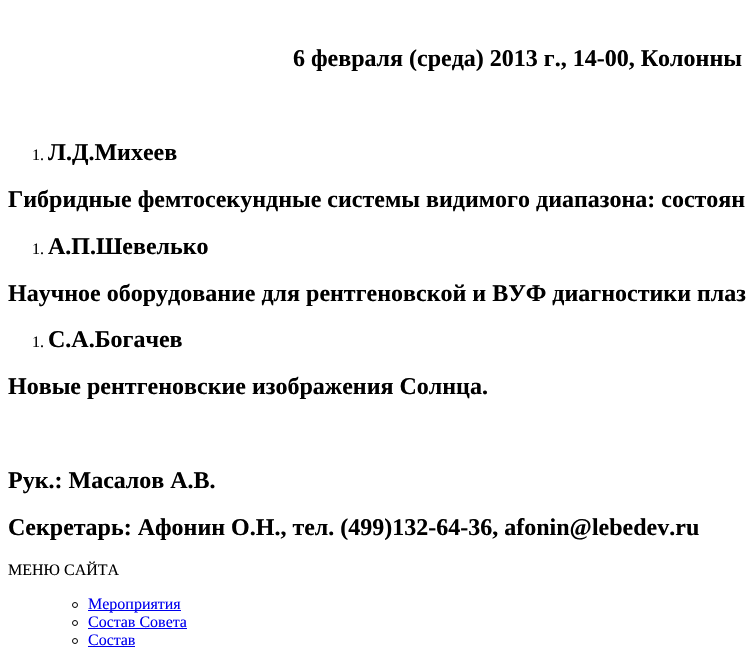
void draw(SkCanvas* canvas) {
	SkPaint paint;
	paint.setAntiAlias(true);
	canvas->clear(0xffffffff);
	SkFont f1(fontMgr->matchFamilyStyle("Liberation Serif", SkFontStyle::Bold()), 24);
	f1.setSubpixel(true);
	paint.setColor(0xff000000);
	canvas->drawString("6 февраля (среда) 2013 г., 14-00, Колонны", 293, 66, f1, paint);
	SkFont f2(fontMgr->matchFamilyStyle("Liberation Serif", SkFontStyle::Normal()), 16);
	f2.setSubpixel(true);
	canvas->drawString("1.", 32, 160, f2, paint);
	canvas->drawString("Л.Д.Михеев", 48, 160, f1, paint);
	canvas->drawString("Гибридные фемтосекундные системы видимого диапазона: состоян", 8, 207, f1, paint);
	canvas->drawString("1.", 32, 254, f2, paint);
	canvas->drawString("А.П.Шевелько", 48, 254, f1, paint);
	canvas->drawString("Научное оборудование для рентгеновской и ВУФ диагностики плаз", 8, 301, f1, paint);
	canvas->drawString("1.", 32, 347, f2, paint);
	canvas->drawString("С.А.Богачев", 48, 347, f1, paint);
	canvas->drawString("Новые рентгеновские изображения Солнца.", 8, 394, f1, paint);
	canvas->drawString("Рук.: Масалов А.В.", 8, 488, f1, paint);
	canvas->drawString("Секретарь: Афонин О.Н., тел. (499)132-64-36, afonin@lebedev.ru", 8, 535, f1, paint);
	canvas->drawString("МЕНЮ САЙТА", 8, 575, f2, paint);
	paint.setStroke(true);
	paint.setStrokeWidth(1);
	canvas->drawCircle(75, 605, 2.5, paint);
	paint.setStroke(false);
	paint.setColor(0xff0000ee);
	canvas->drawRect(SkRect::MakeXYWH(88, 610, 93, 1), paint);
	canvas->drawString("Мероприятия", 88, 609, f2, paint);
	paint.setStroke(true);
	paint.setColor(0xff000000);
	canvas->drawCircle(75, 623, 2.5, paint);
	paint.setStroke(false);
	paint.setColor(0xff0000ee);
	canvas->drawString("Состав Совета", 88, 627, f2, paint);
	canvas->drawRect(SkRect::MakeXYWH(88, 628, 99, 1), paint);
	paint.setStroke(true);
	paint.setColor(0xff000000);
	canvas->drawCircle(75, 641, 2.5, paint);
	paint.setStroke(false);
	paint.setColor(0xff0000ee);
	canvas->drawString("Состав", 88, 645, f2, paint);
	canvas->drawRect(SkRect::MakeXYWH(88, 646, 47, 1), paint);
}
